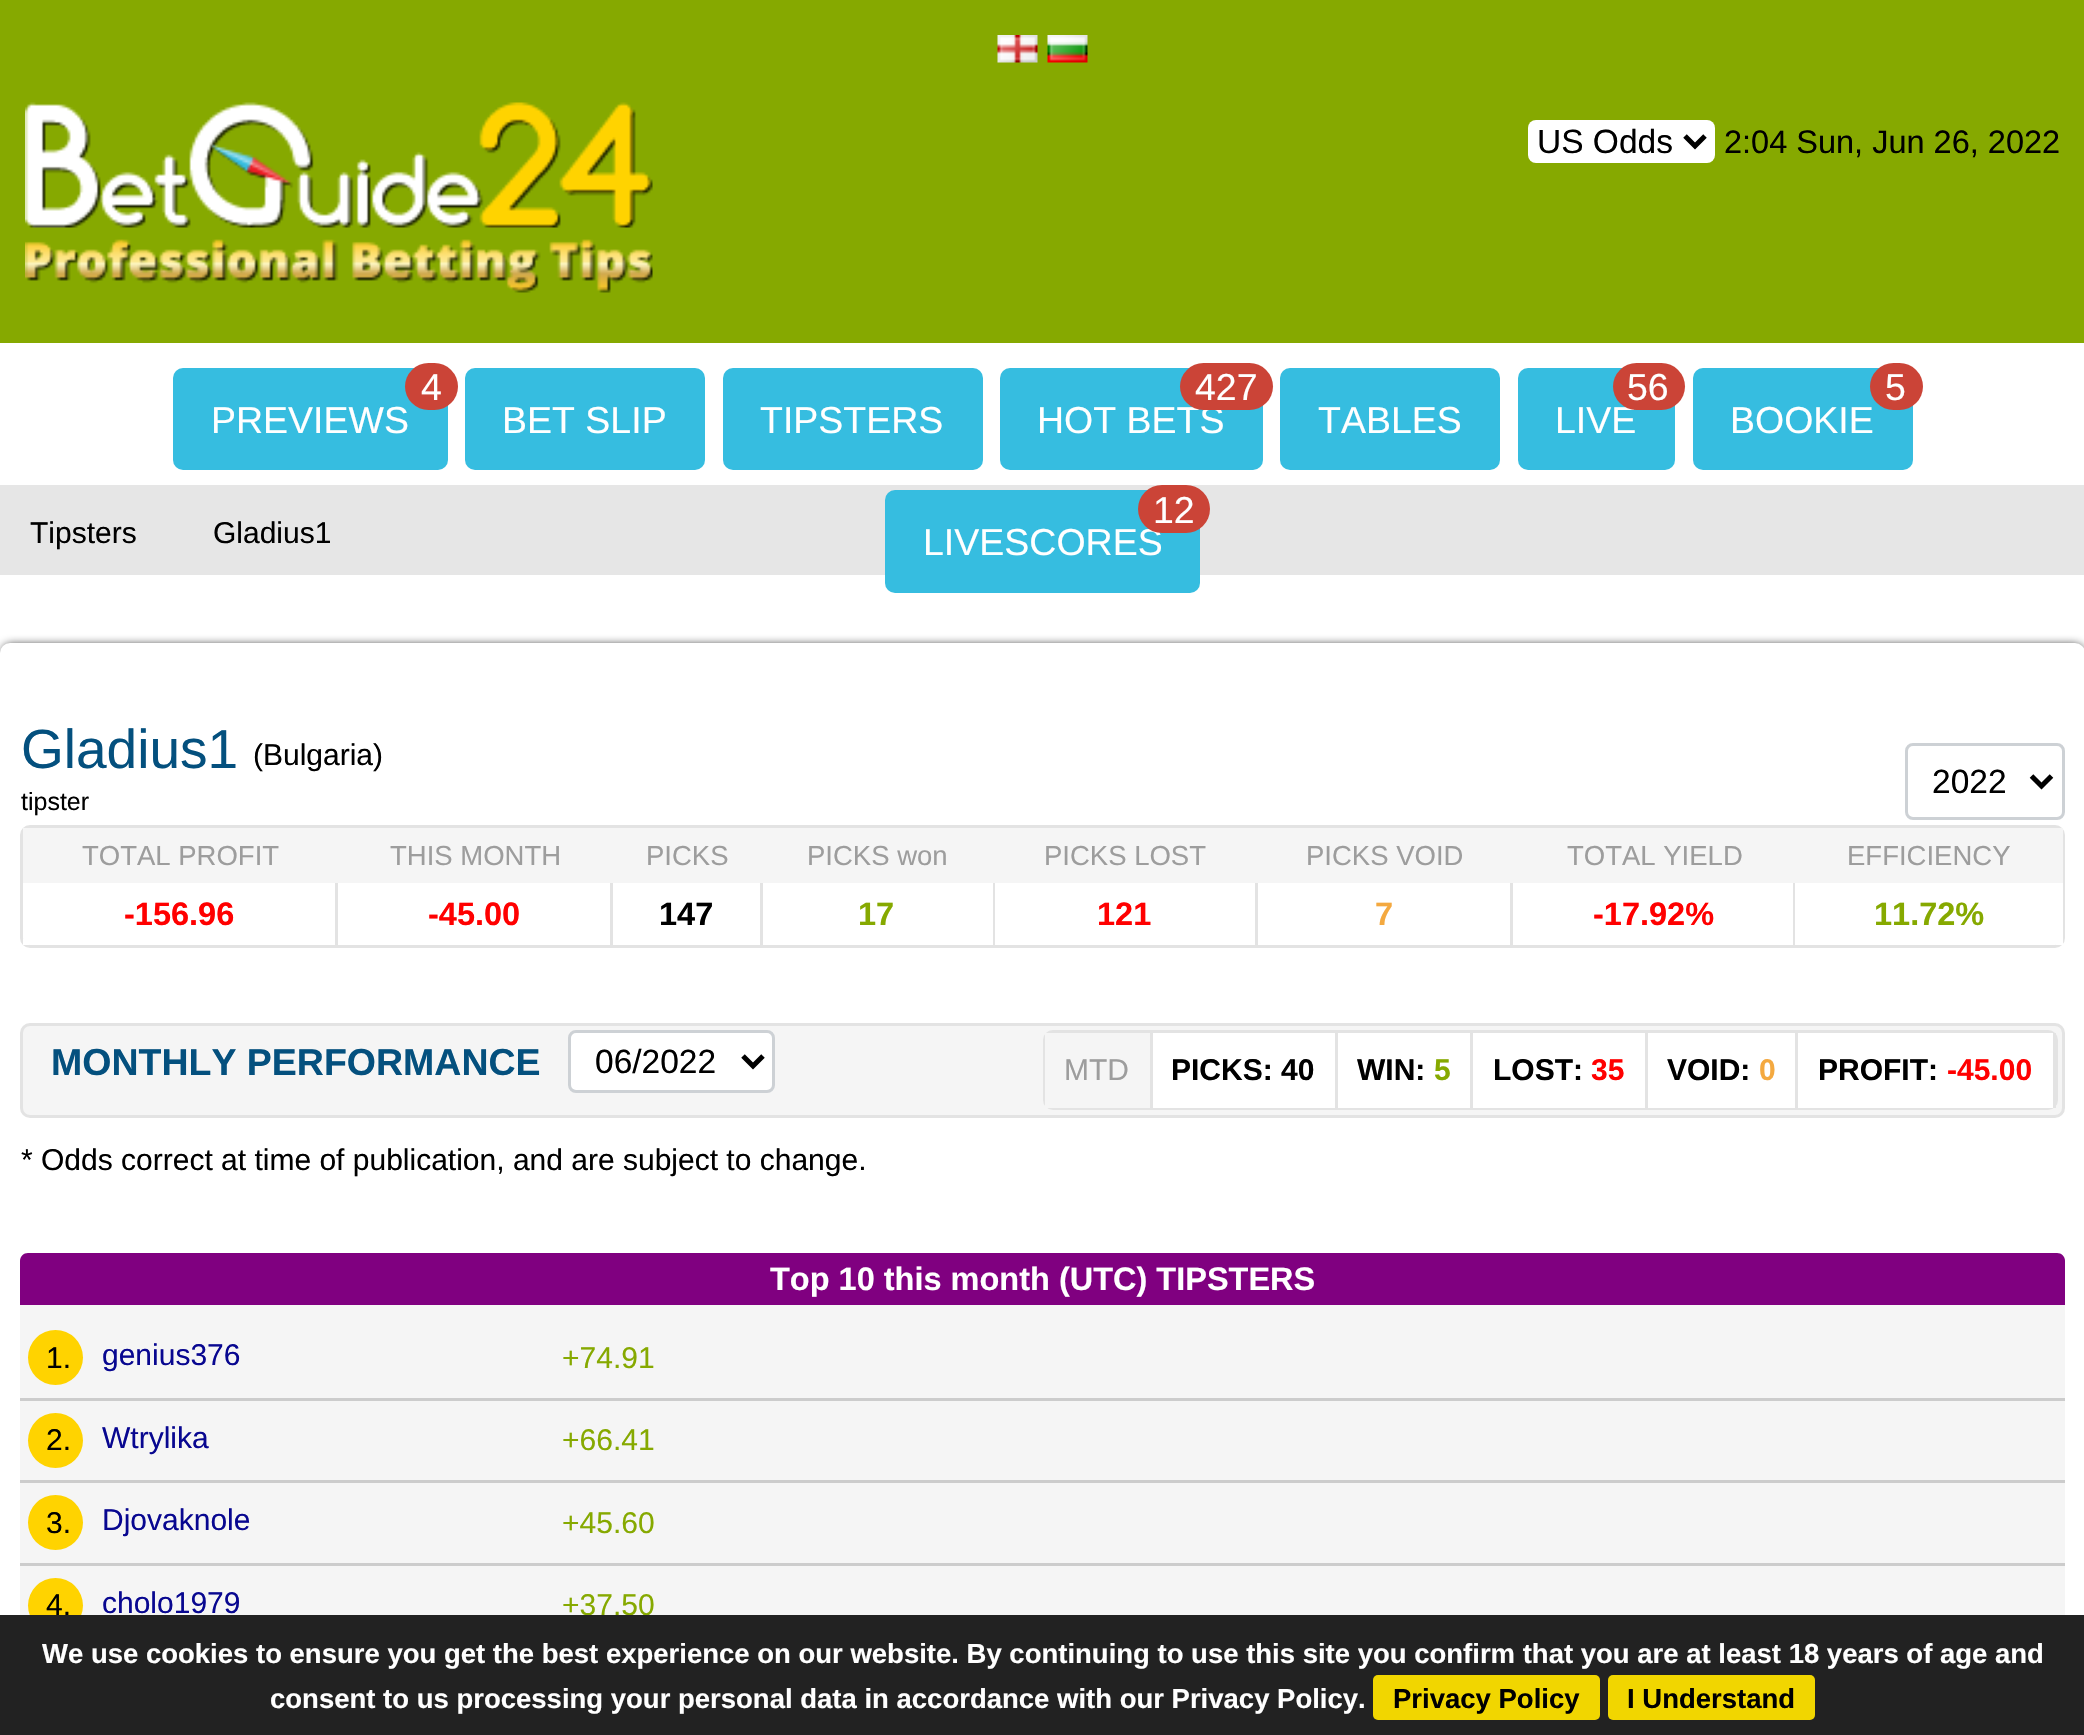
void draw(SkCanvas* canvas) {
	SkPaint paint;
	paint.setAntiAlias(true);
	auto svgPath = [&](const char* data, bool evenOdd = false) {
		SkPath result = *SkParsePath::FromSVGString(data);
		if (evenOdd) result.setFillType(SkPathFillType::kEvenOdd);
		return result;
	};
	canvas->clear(0xffffffff);
	paint.setColor(0xff86a900);
	canvas->drawRect(SkRect::MakeXYWH(0, 0, 2084, 343), paint);
	canvas->drawImageRect(SkImages::DeferredFromEncodedData(SkData::MakeFromFileName("img1.png")), SkRect::MakeXYWH(997, 35, 41, 28), SkSamplingOptions());
	canvas->drawImageRect(SkImages::DeferredFromEncodedData(SkData::MakeFromFileName("img2.png")), SkRect::MakeXYWH(1047, 35, 41, 28), SkSamplingOptions());
	canvas->drawImageRect(SkImages::DeferredFromEncodedData(SkData::MakeFromFileName("img3.png")), SkRect::MakeXYWH(25, 102, 628, 126), SkSamplingOptions());
	canvas->drawImageRect(SkImages::DeferredFromEncodedData(SkData::MakeFromFileName("img4.png")), SkRect::MakeXYWH(25, 239, 628, 54), SkSamplingOptions());
	paint.setColor(0xffffffff);
	canvas->drawRoundRect(SkRect::MakeXYWH(1528, 120, 187, 43), 8, 8, paint);
	paint.setStroke(true);
	paint.setStrokeWidth(5);
	paint.setColor(0xff000000);
	canvas->drawPath(svgPath("M1685 136L1695 146L1705 136"), paint);
	SkFont f1(fontMgr->matchFamilyStyle("Liberation Sans", SkFontStyle::Normal()), 33.5);
	f1.setSubpixel(true);
	paint.setStroke(false);
	canvas->drawString("US Odds", 1537, 153, f1, paint);
	SkFont f2(fontMgr->matchFamilyStyle("Liberation Sans", SkFontStyle::Normal()), 32.5);
	f2.setSubpixel(true);
	canvas->drawString("2:04 Sun, Jun 26, 2022", 1724, 153, f2, paint);
	paint.setColor(0xffe6e6e6);
	canvas->drawRect(SkRect::MakeXYWH(0, 485, 2084, 90), paint);
	SkFont f3(fontMgr->matchFamilyStyle("Liberation Sans", SkFontStyle::Normal()), 30);
	f3.setSubpixel(true);
	paint.setColor(0xff000000);
	canvas->drawString("Tipsters", 30, 543, f3, paint);
	canvas->drawString("Gladius1", 213, 543, f3, paint);
	paint.setColor(0xff36bde0);
	canvas->drawRoundRect(SkRect::MakeXYWH(173, 368, 275, 102), 10, 10, paint);
	SkFont f4(fontMgr->matchFamilyStyle("Liberation Sans", SkFontStyle::Normal()), 37.5);
	f4.setSubpixel(true);
	paint.setColor(0xffffffff);
	canvas->drawString("PREVIEWS", 211, 433, f4, paint);
	paint.setColor(0xffcb4437);
	canvas->drawRoundRect(SkRect::MakeXYWH(405, 363, 53, 47), 23.5, 23.5, paint);
	paint.setColor(0xffffffff);
	canvas->drawString("4", 421, 400, f4, paint);
	paint.setColor(0xff36bde0);
	canvas->drawRoundRect(SkRect::MakeXYWH(465, 368, 240, 102), 10, 10, paint);
	paint.setColor(0xffffffff);
	canvas->drawString("BET SLIP", 502, 433, f4, paint);
	paint.setColor(0xff36bde0);
	canvas->drawRoundRect(SkRect::MakeXYWH(723, 368, 260, 102), 10, 10, paint);
	paint.setColor(0xffffffff);
	canvas->drawString("TIPSTERS", 760, 433, f4, paint);
	paint.setColor(0xff36bde0);
	canvas->drawRoundRect(SkRect::MakeXYWH(1000, 368, 263, 102), 10, 10, paint);
	paint.setColor(0xffffffff);
	canvas->drawString("HOT BETS", 1037, 433, f4, paint);
	paint.setColor(0xffcb4437);
	canvas->drawRoundRect(SkRect::MakeXYWH(1180, 363, 93, 47), 23.5, 23.5, paint);
	paint.setColor(0xffffffff);
	canvas->drawString("427", 1195, 400, f4, paint);
	paint.setColor(0xff36bde0);
	canvas->drawRoundRect(SkRect::MakeXYWH(1280, 368, 220, 102), 10, 10, paint);
	paint.setColor(0xffffffff);
	canvas->drawString("TABLES", 1318, 433, f4, paint);
	paint.setColor(0xff36bde0);
	canvas->drawRoundRect(SkRect::MakeXYWH(1518, 368, 157, 102), 10, 10, paint);
	paint.setColor(0xffffffff);
	canvas->drawString("LIVE", 1555, 433, f4, paint);
	paint.setColor(0xffcb4437);
	canvas->drawRoundRect(SkRect::MakeXYWH(1613, 363, 72, 47), 23.5, 23.5, paint);
	paint.setColor(0xffffffff);
	canvas->drawString("56", 1627, 400, f4, paint);
	paint.setColor(0xff36bde0);
	canvas->drawRoundRect(SkRect::MakeXYWH(1693, 368, 220, 102), 10, 10, paint);
	paint.setColor(0xffffffff);
	canvas->drawString("BOOKIE", 1730, 433, f4, paint);
	paint.setColor(0xffcb4437);
	canvas->drawRoundRect(SkRect::MakeXYWH(1870, 363, 53, 47), 23.5, 23.5, paint);
	paint.setColor(0xffffffff);
	canvas->drawString("5", 1885, 400, f4, paint);
	paint.setColor(0xff36bde0);
	canvas->drawRoundRect(SkRect::MakeXYWH(885, 490, 315, 103), 10, 10, paint);
	paint.setColor(0xffffffff);
	canvas->drawString("LIVESCORES", 923, 555, f4, paint);
	paint.setColor(0xffcb4437);
	canvas->drawRoundRect(SkRect::MakeXYWH(1138, 485, 72, 48), 24, 24, paint);
	paint.setColor(0xffffffff);
	canvas->drawString("12", 1153, 523, f4, paint);
	paint.setColor(0xff111111);
	paint.setMaskFilter(SkMaskFilter::MakeBlur(kNormal_SkBlurStyle, 5));
	canvas->drawRoundRect(SkRect::MakeXYWH(3, 645, 2080, 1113), 8, 8, paint);
	paint.setMaskFilter(nullptr);
	paint.setColor(0xffffffff);
	canvas->drawRoundRect(SkRect::MakeXYWH(0, 643, 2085, 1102), 10, 10, paint);
	SkFont f5(fontMgr->matchFamilyStyle("Liberation Sans", SkFontStyle::Normal()), 55);
	f5.setSubpixel(true);
	paint.setColor(0xff04507e);
	canvas->drawString("Gladius1", 21, 768, f5, paint);
	SkFont f6(fontMgr->matchFamilyStyle("Liberation Sans", SkFontStyle::Normal()), 25);
	f6.setSubpixel(true);
	paint.setColor(0xff000000);
	canvas->drawString("tipster", 21, 810, f6, paint);
	canvas->drawString("(Bulgaria)", 253, 765, f3, paint);
	paint.setStroke(true);
	paint.setStrokeWidth(3);
	paint.setColor(0xffcdd1d5);
	canvas->drawRoundRect(SkRect::MakeXYWH(1906.5, 744.5, 157, 74), 6.5, 6.5, paint);
	paint.setStrokeWidth(5);
	paint.setColor(0xff000000);
	canvas->drawPath(svgPath("M2031.5 776L2041.5 786L2051.5 776"), paint);
	paint.setStroke(false);
	canvas->drawString("2022", 1932, 793, f1, paint);
	paint.setStroke(true);
	paint.setStrokeWidth(3);
	paint.setColor(0xffe3e3e3);
	canvas->drawRoundRect(SkRect::MakeXYWH(21.5, 826.5, 2042, 120), 8.5, 8.5, paint);
	paint.setStroke(false);
	paint.setColor(0xfff5f5f5);
	canvas->drawRect(SkRect::MakeXYWH(23, 828, 2040, 55), paint);
	SkFont f7(fontMgr->matchFamilyStyle("Liberation Sans", SkFontStyle::Normal()), 27.5);
	f7.setSubpixel(true);
	paint.setColor(0xff9d9d9d);
	canvas->drawString("TOTAL PROFIT", 82, 865, f7, paint);
	canvas->drawString("THIS MONTH", 390, 865, f7, paint);
	canvas->drawString("PICKS", 646, 865, f7, paint);
	canvas->drawString("PICKS won", 807, 865, f7, paint);
	canvas->drawString("PICKS LOST", 1044, 865, f7, paint);
	canvas->drawString("PICKS VOID", 1306, 865, f7, paint);
	canvas->drawString("TOTAL YIELD", 1567, 865, f7, paint);
	canvas->drawString("EFFICIENCY", 1847, 865, f7, paint);
	paint.setColor(0xffffffff);
	canvas->drawRect(SkRect::MakeXYWH(23, 939, 6, 6), paint);
	paint.setColor(0xffe3e3e3);
	canvas->drawRect(SkRect::MakeXYWH(335, 883, 3, 62), paint);
	SkFont f8(fontMgr->matchFamilyStyle("Liberation Sans", SkFontStyle::Bold()), 32.5);
	f8.setSubpixel(true);
	paint.setColor(0xffff0000);
	canvas->drawString("-156.96", 124, 925, f8, paint);
	paint.setColor(0xffe3e3e3);
	canvas->drawRect(SkRect::MakeXYWH(610, 883, 3, 62), paint);
	paint.setColor(0xffff0000);
	canvas->drawString("-45.00", 428, 925, f8, paint);
	paint.setColor(0xffe3e3e3);
	canvas->drawRect(SkRect::MakeXYWH(760, 883, 3, 62), paint);
	paint.setColor(0xff000000);
	canvas->drawString("147", 659, 925, f8, paint);
	paint.setColor(0xffe3e3e3);
	canvas->drawRect(SkRect::MakeXYWH(993, 883, 2, 62), paint);
	paint.setColor(0xff86a900);
	canvas->drawString("17", 858, 925, f8, paint);
	paint.setColor(0xffe3e3e3);
	canvas->drawRect(SkRect::MakeXYWH(1255, 883, 3, 62), paint);
	paint.setColor(0xffff0000);
	canvas->drawString("121", 1097, 925, f8, paint);
	paint.setColor(0xffe3e3e3);
	canvas->drawRect(SkRect::MakeXYWH(1510, 883, 3, 62), paint);
	paint.setColor(0xfff4a940);
	canvas->drawString("7", 1375, 925, f8, paint);
	paint.setColor(0xffe3e3e3);
	canvas->drawRect(SkRect::MakeXYWH(1793, 883, 2, 62), paint);
	paint.setColor(0xffff0000);
	canvas->drawString("-17.92%", 1593, 925, f8, paint);
	paint.setColor(0xffffffff);
	canvas->drawRect(SkRect::MakeXYWH(2056, 883, 7, 62), paint);
	paint.setColor(0xff86a900);
	canvas->drawString("11.72%", 1874, 925, f8, paint);
	paint.setColor(0xfff5f5f5);
	canvas->drawRoundRect(SkRect::MakeXYWH(21.5, 1024.5, 2042, 92), 8.5, 8.5, paint);
	paint.setStroke(true);
	paint.setColor(0xffe3e3e3);
	canvas->drawRoundRect(SkRect::MakeXYWH(21.5, 1024.5, 2042, 92), 8.5, 8.5, paint);
	SkFont f9(fontMgr->matchFamilyStyle("Liberation Sans", SkFontStyle::Bold()), 37.5);
	f9.setSubpixel(true);
	paint.setStroke(false);
	paint.setColor(0xff04507e);
	canvas->drawString("MONTHLY PERFORMANCE", 51, 1075, f9, paint);
	paint.setColor(0xffffffff);
	canvas->drawRoundRect(SkRect::MakeXYWH(569.5, 1031.5, 204, 60), 6.5, 6.5, paint);
	paint.setStroke(true);
	paint.setColor(0xffcdd1d5);
	canvas->drawRoundRect(SkRect::MakeXYWH(569.5, 1031.5, 204, 60), 6.5, 6.5, paint);
	paint.setStrokeWidth(5);
	paint.setColor(0xff000000);
	canvas->drawPath(svgPath("M743 1056L753 1066L763 1056"), paint);
	paint.setStroke(false);
	canvas->drawString("06/2022", 595, 1073, f1, paint);
	paint.setStroke(true);
	paint.setStrokeWidth(3);
	paint.setColor(0xffe3e3e3);
	canvas->drawRoundRect(SkRect::MakeXYWH(1044.5, 1031.5, 1012, 77), 8.5, 8.5, paint);
	paint.setStroke(false);
	paint.setColor(0xfff5f5f5);
	canvas->drawRect(SkRect::MakeXYWH(1045, 1033, 105, 75), paint);
	paint.setColor(0xffe3e3e3);
	canvas->drawRect(SkRect::MakeXYWH(1150, 1033, 3, 75), paint);
	paint.setColor(0xff9d9d9d);
	canvas->drawString("MTD", 1064, 1080, f3, paint);
	paint.setColor(0xffffffff);
	canvas->drawRect(SkRect::MakeXYWH(1153, 1033, 182, 75), paint);
	paint.setColor(0xffe3e3e3);
	canvas->drawRect(SkRect::MakeXYWH(1335, 1033, 3, 75), paint);
	SkFont f10(fontMgr->matchFamilyStyle("Liberation Sans", SkFontStyle::Bold()), 30);
	f10.setSubpixel(true);
	paint.setColor(0xff000000);
	canvas->drawString("PICKS: 40", 1171, 1080, f10, paint);
	paint.setColor(0xffffffff);
	canvas->drawRect(SkRect::MakeXYWH(1338, 1033, 132, 75), paint);
	paint.setColor(0xffe3e3e3);
	canvas->drawRect(SkRect::MakeXYWH(1470, 1033, 3, 75), paint);
	paint.setColor(0xff000000);
	canvas->drawString("WIN:", 1357, 1080, f10, paint);
	paint.setColor(0xff86a900);
	canvas->drawString("5", 1434, 1080, f10, paint);
	paint.setColor(0xffffffff);
	canvas->drawRect(SkRect::MakeXYWH(1473, 1033, 172, 75), paint);
	paint.setColor(0xffe3e3e3);
	canvas->drawRect(SkRect::MakeXYWH(1645, 1033, 3, 75), paint);
	paint.setColor(0xff000000);
	canvas->drawString("LOST:", 1493, 1080, f10, paint);
	paint.setColor(0xffff0000);
	canvas->drawString("35", 1591, 1080, f10, paint);
	paint.setColor(0xffffffff);
	canvas->drawRect(SkRect::MakeXYWH(1648, 1033, 147, 75), paint);
	paint.setColor(0xffe3e3e3);
	canvas->drawRect(SkRect::MakeXYWH(1795, 1033, 3, 75), paint);
	paint.setColor(0xff000000);
	canvas->drawString("VOID:", 1667, 1080, f10, paint);
	paint.setColor(0xfff4a940);
	canvas->drawString("0", 1759, 1080, f10, paint);
	paint.setColor(0xffffffff);
	canvas->drawRect(SkRect::MakeXYWH(1798, 1033, 255, 75), paint);
	paint.setColor(0xffe3e3e3);
	canvas->drawRect(SkRect::MakeXYWH(2053, 1033, 3, 75), paint);
	paint.setColor(0xff000000);
	canvas->drawString("PROFIT:", 1818, 1080, f10, paint);
	paint.setColor(0xffff0000);
	canvas->drawString("-45.00", 1947, 1080, f10, paint);
	paint.setColor(0xff000000);
	canvas->drawString("* Odds correct at time of publication, and are subject to change.", 21, 1170, f3, paint);
	paint.setColor(0xff800080);
	canvas->drawPath(svgPath("M28 1253H2057C2061.5 1253 2065 1256.5 2065 1261V1305H20V1261C20 1256.5 23.5 1253 28 1253Z"), paint);
	paint.setColor(0xffffffff);
	canvas->drawString("Top 10 this month (UTC) TIPSTERS", 770, 1290, f8, paint);
	paint.setColor(0xfff5f5f5);
	canvas->drawRect(SkRect::MakeXYWH(20, 1305, 2045, 310), paint);
	paint.setColor(0xffffd300);
	canvas->drawCircle(55.5, 1357.5, 27.5, paint);
	paint.setColor(0xff000000);
	canvas->drawString("1.", 46, 1368, f3, paint);
	paint.setColor(0xff080790);
	canvas->drawString("genius376", 102, 1365, f3, paint);
	paint.setColor(0xff86a900);
	canvas->drawString("+74.91", 562, 1368, f3, paint);
	paint.setColor(0xffcccccc);
	canvas->drawRect(SkRect::MakeXYWH(20, 1398, 2045, 3), paint);
	paint.setColor(0xffffd300);
	canvas->drawCircle(55.5, 1440.5, 27.5, paint);
	paint.setColor(0xff000000);
	canvas->drawString("2.", 46, 1450, f3, paint);
	paint.setColor(0xff080790);
	canvas->drawString("Wtrylika", 102, 1448, f3, paint);
	paint.setColor(0xff86a900);
	canvas->drawString("+66.41", 562, 1450, f3, paint);
	paint.setColor(0xffcccccc);
	canvas->drawRect(SkRect::MakeXYWH(20, 1480, 2045, 3), paint);
	paint.setColor(0xffffd300);
	canvas->drawCircle(55.5, 1522.5, 27.5, paint);
	paint.setColor(0xff000000);
	canvas->drawString("3.", 46, 1533, f3, paint);
	paint.setColor(0xff080790);
	canvas->drawString("Djovaknole", 102, 1530, f3, paint);
	paint.setColor(0xff86a900);
	canvas->drawString("+45.60", 562, 1533, f3, paint);
	paint.setColor(0xffcccccc);
	canvas->drawRect(SkRect::MakeXYWH(20, 1563, 2045, 3), paint);
	paint.setColor(0xffffd300);
	canvas->drawCircle(55.5, 1605.5, 27.5, paint);
	paint.setColor(0xff000000);
	canvas->drawString("4.", 46, 1615, f3, paint);
	paint.setColor(0xff080790);
	canvas->drawString("cholo1979", 102, 1613, f3, paint);
	paint.setColor(0xff86a900);
	canvas->drawString("+37.50", 562, 1615, f3, paint);
	paint.setColor(0xff222222);
	canvas->drawRect(SkRect::MakeXYWH(0, 1615, 2084, 120), paint);
	SkFont f11(fontMgr->matchFamilyStyle("Liberation Sans", SkFontStyle::Bold()), 27.5);
	f11.setSubpixel(true);
	paint.setColor(0xffffffff);
	canvas->drawString("We use cookies to ensure you get the best experience on our website. By continuing to use this site you confirm that you are at least 18 years of age and", 42, 1663, f11, paint);
	canvas->drawString("consent to us processing your personal data in accordance with our Privacy Policy.", 270, 1708, f11, paint);
	paint.setColor(0xfff1d600);
	canvas->drawRoundRect(SkRect::MakeXYWH(1373, 1675, 227, 45), 5, 5, paint);
	paint.setColor(0xff000000);
	canvas->drawString("Privacy Policy", 1393, 1708, f11, paint);
	paint.setColor(0xfff1d600);
	canvas->drawRoundRect(SkRect::MakeXYWH(1608, 1675, 207, 45), 5, 5, paint);
	paint.setColor(0xff000000);
	canvas->drawString("I Understand", 1627, 1708, f11, paint);
}
